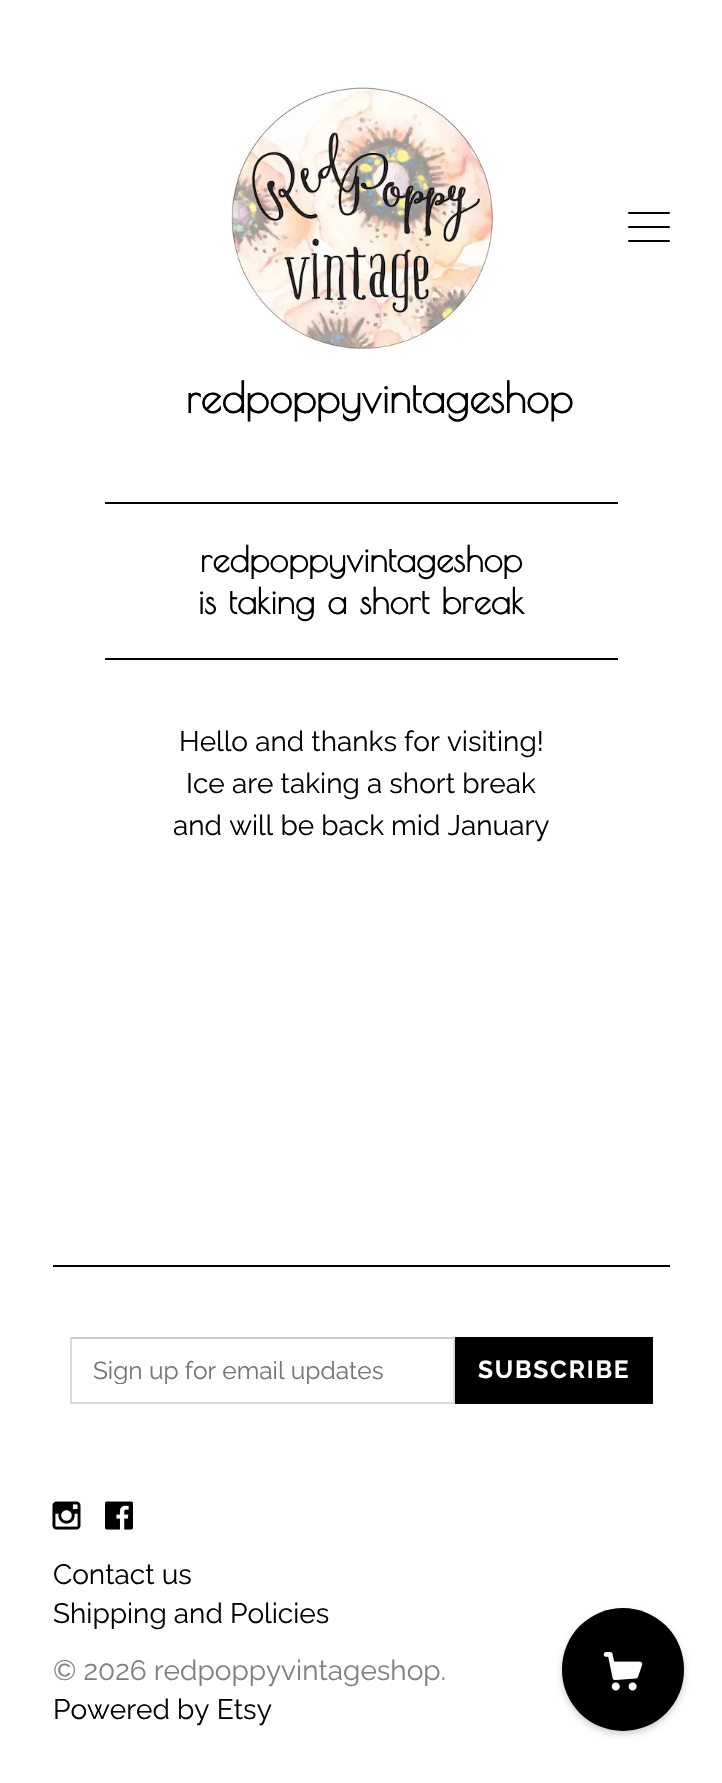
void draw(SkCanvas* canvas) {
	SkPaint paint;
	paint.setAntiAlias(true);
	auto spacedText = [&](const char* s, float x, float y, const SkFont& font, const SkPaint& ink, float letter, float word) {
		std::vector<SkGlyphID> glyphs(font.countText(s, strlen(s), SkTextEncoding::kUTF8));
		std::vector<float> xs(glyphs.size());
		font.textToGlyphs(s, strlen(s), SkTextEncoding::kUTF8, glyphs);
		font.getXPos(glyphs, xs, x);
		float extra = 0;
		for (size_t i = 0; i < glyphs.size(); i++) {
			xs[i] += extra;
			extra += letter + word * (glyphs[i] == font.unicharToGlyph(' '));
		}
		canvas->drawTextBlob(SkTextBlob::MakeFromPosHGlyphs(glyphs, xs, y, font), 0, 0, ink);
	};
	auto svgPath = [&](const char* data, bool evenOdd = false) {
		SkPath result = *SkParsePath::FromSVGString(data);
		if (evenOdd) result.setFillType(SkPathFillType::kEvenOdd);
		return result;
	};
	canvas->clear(0xffffffff);
	canvas->drawImageRect(SkImages::DeferredFromEncodedData(SkData::MakeFromFileName("img1.png")), SkRect::MakeXYWH(231, 87, 263, 263), SkSamplingOptions());
	paint.setColor(0xff000000);
	canvas->drawRoundRect(SkRect::MakeXYWH(628, 212, 42, 2), 1, 1, paint);
	canvas->drawRoundRect(SkRect::MakeXYWH(628, 226, 42, 2), 1, 1, paint);
	canvas->drawRoundRect(SkRect::MakeXYWH(628, 240, 42, 2), 1, 1, paint);
	SkFont f1(fontMgr->matchFamilyStyle("Poiret One", SkFontStyle::Bold()), 42);
	f1.setSubpixel(true);
	canvas->drawString("redpoppyvintageshop", 186, 413, f1, paint);
	canvas->drawRect(SkRect::MakeXYWH(105, 502, 513, 2), paint);
	canvas->drawRect(SkRect::MakeXYWH(105, 658, 513, 2), paint);
	SkFont f2(fontMgr->matchFamilyStyle("Poiret One", SkFontStyle::Bold()), 35);
	f2.setSubpixel(true);
	canvas->drawString("redpoppyvintageshop", 200, 572, f2, paint);
	canvas->drawString("is taking a short break", 198, 614, f2, paint);
	SkFont f3(fontMgr->matchFamilyStyle("Raleway", SkFontStyle::Normal()), 28);
	f3.setSubpixel(true);
	canvas->drawString("Hello and thanks for visiting!", 179, 751, f3, paint);
	canvas->drawString("Ice are taking a short break", 186, 793, f3, paint);
	canvas->drawString("and will be back mid January", 173, 835, f3, paint);
	canvas->drawRect(SkRect::MakeXYWH(53, 1265, 617, 2), paint);
	paint.setColor(0xffcccccc);
	canvas->drawPath(svgPath("M70 1337H455L453 1339H72Z"), paint);
	paint.setColor(0x26000000);
	canvas->drawPath(svgPath("M455 1337V1404L453 1402V1339Z"), paint);
	canvas->drawPath(svgPath("M455 1404H70L72 1402H453Z"), paint);
	canvas->drawPath(svgPath("M70 1404V1337L72 1339V1402Z"), paint);
	canvas->save();
	canvas->clipRect(SkRect::MakeXYWH(93, 1356, 339, 28));
	SkFont f4(fontMgr->matchFamilyStyle("Raleway", SkFontStyle::Normal()), 24.5);
	f4.setSubpixel(true);
	paint.setColor(0xff757575);
	canvas->drawString("Sign up for email updates", 93, 1379, f4, paint);
	canvas->restore();
	paint.setColor(0xff000000);
	canvas->drawRect(SkRect::MakeXYWH(455, 1337, 198, 67), paint);
	SkFont f5(fontMgr->matchFamilyStyle("Raleway", SkFontStyle::Bold()), 24.5);
	f5.setSubpixel(true);
	paint.setColor(0xffffffff);
	spacedText("SUBSCRIBE", 478, 1378, f5, paint, 1.75, 0);
	canvas->drawImageRect(SkImages::DeferredFromEncodedData(SkData::MakeFromFileName("img2.png")), SkRect::MakeXYWH(52, 1501, 29, 29), SkSamplingOptions());
	canvas->drawImageRect(SkImages::DeferredFromEncodedData(SkData::MakeFromFileName("img3.png")), SkRect::MakeXYWH(105, 1501, 28, 29), SkSamplingOptions());
	paint.setColor(0xff000000);
	canvas->drawString("Contact us", 53, 1584, f3, paint);
	canvas->drawString("Shipping and Policies", 53, 1623, f3, paint);
	paint.setColor(0xff808080);
	canvas->drawString("© 2026 redpoppyvintageshop.", 53, 1680, f3, paint);
	paint.setColor(0xff000000);
	canvas->drawString("Powered by Etsy", 53, 1719, f3, paint);
	paint.setColor(0x33000000);
	paint.setMaskFilter(SkMaskFilter::MakeBlur(kNormal_SkBlurStyle, 3.5));
	canvas->drawRoundRect(SkRect::MakeXYWH(562, 1612, 122, 122), 61, 61, paint);
	paint.setMaskFilter(nullptr);
	paint.setColor(0xff000000);
	canvas->drawRoundRect(SkRect::MakeXYWH(562, 1608, 122, 123), 61, 61, paint);
	canvas->drawImageRect(SkImages::DeferredFromEncodedData(SkData::MakeFromFileName("img4.png")), SkRect::MakeXYWH(603, 1652, 40, 39), SkSamplingOptions());
}
